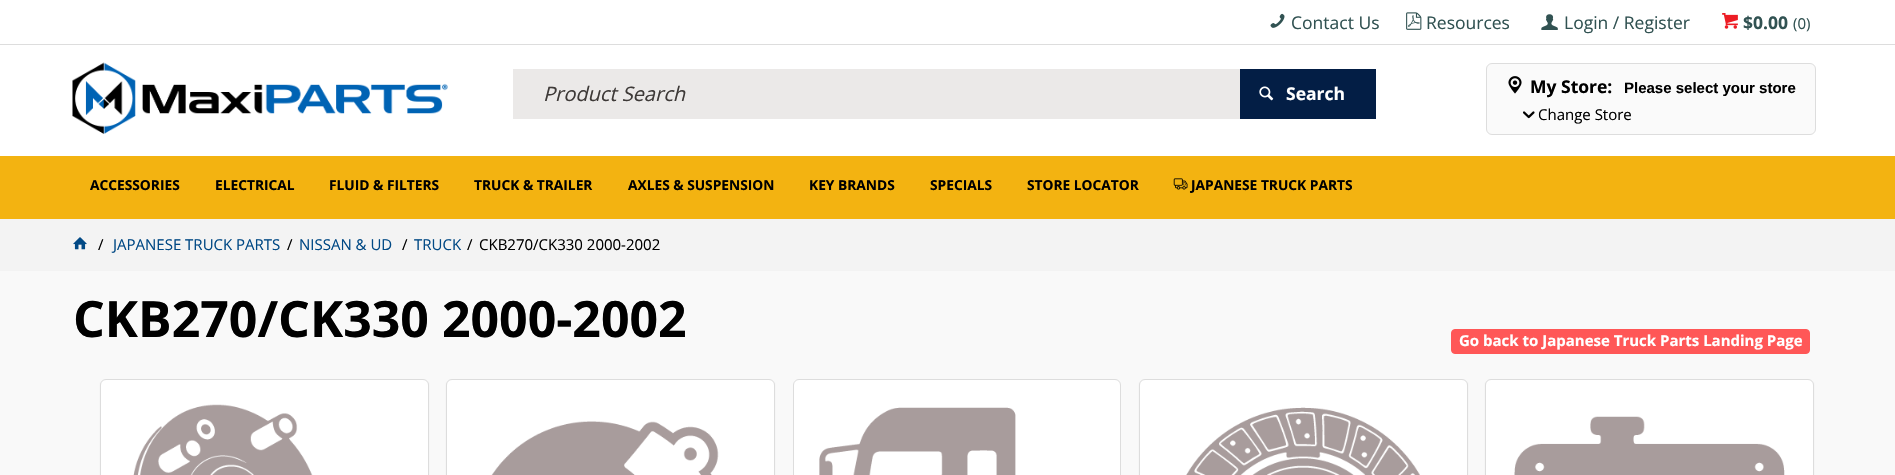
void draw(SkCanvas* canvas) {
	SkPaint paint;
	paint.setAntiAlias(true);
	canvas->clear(0xffffffff);
	paint.setColor(0xffdddddd);
	canvas->drawRect(SkRect::MakeXYWH(0, 44, 1895, 1), paint);
	canvas->drawImageRect(SkImages::DeferredFromEncodedData(SkData::MakeFromFileName("img1.png")), SkRect::MakeXYWH(1270, 13, 15, 15), SkSamplingOptions());
	SkFont f1(fontMgr->matchFamilyStyle("Open Sans", SkFontStyle::Normal()), 17.5);
	f1.setSubpixel(true);
	paint.setColor(0xff315252);
	canvas->drawString("Contact Us", 1291, 29, f1, paint);
	canvas->drawImageRect(SkImages::DeferredFromEncodedData(SkData::MakeFromFileName("img2.png")), SkRect::MakeXYWH(1406, 12, 16, 18), SkSamplingOptions());
	canvas->drawString("Resources", 1426, 29, f1, paint);
	canvas->drawImageRect(SkImages::DeferredFromEncodedData(SkData::MakeFromFileName("img3.png")), SkRect::MakeXYWH(1541, 14, 17, 16), SkSamplingOptions());
	canvas->drawString("Login / Register", 1564, 29, f1, paint);
	canvas->drawImageRect(SkImages::DeferredFromEncodedData(SkData::MakeFromFileName("img4.png")), SkRect::MakeXYWH(1722, 13, 16, 16), SkSamplingOptions());
	SkFont f2(fontMgr->matchFamilyStyle("Open Sans", SkFontStyle::Bold()), 17.5);
	f2.setSubpixel(true);
	canvas->drawString("$0.00", 1743, 29, f2, paint);
	SkFont f3(fontMgr->matchFamilyStyle("Open Sans", SkFontStyle::Normal()), 15);
	f3.setSubpixel(true);
	canvas->drawString("(0)", 1793, 29, f3, paint);
	canvas->drawImageRect(SkImages::DeferredFromEncodedData(SkData::MakeFromFileName("img5.png")), SkRect::MakeXYWH(72, 62, 376, 72), SkSamplingOptions());
	paint.setColor(0xffebe9e8);
	canvas->drawRect(SkRect::MakeXYWH(513, 69, 727, 50), paint);
	SkFont f4(fontMgr->matchFamilyStyle("Open Sans", SkFontStyle::Italic()), 20);
	f4.setSubpixel(true);
	paint.setColor(0xff3e3a38);
	canvas->drawString("Product Search", 543, 101, f4, paint);
	paint.setColor(0xff031e45);
	canvas->drawRect(SkRect::MakeXYWH(1240, 69, 136, 50), paint);
	canvas->drawImageRect(SkImages::DeferredFromEncodedData(SkData::MakeFromFileName("img6.png")), SkRect::MakeXYWH(1259, 86, 15, 15), SkSamplingOptions());
	paint.setColor(0xffffffff);
	canvas->drawString("Search", 1286, 100, f2, paint);
	paint.setColor(0xfffafafa);
	canvas->drawRoundRect(SkRect::MakeXYWH(1486.5, 63.5, 329, 71), 5.5, 5.5, paint);
	paint.setStroke(true);
	paint.setStrokeWidth(1);
	paint.setColor(0xffdddddd);
	canvas->drawRoundRect(SkRect::MakeXYWH(1486.5, 63.5, 329, 71), 5.5, 5.5, paint);
	canvas->drawImageRect(SkImages::DeferredFromEncodedData(SkData::MakeFromFileName("img7.png")), SkRect::MakeXYWH(1508, 76, 14, 18), SkSamplingOptions());
	paint.setStroke(false);
	paint.setColor(0xff000000);
	canvas->drawString("My Store:", 1530, 93, f2, paint);
	SkFont f5(fontMgr->matchFamilyStyle("Liberation Sans", SkFontStyle::Bold()), 15);
	f5.setSubpixel(true);
	canvas->drawString("Please select your store", 1624, 93, f5, paint);
	canvas->drawImageRect(SkImages::DeferredFromEncodedData(SkData::MakeFromFileName("img8.png")), SkRect::MakeXYWH(1523, 111, 12, 8), SkSamplingOptions());
	canvas->drawString("Change Store", 1538, 120, f3, paint);
	paint.setColor(0xfff3b311);
	canvas->drawRect(SkRect::MakeXYWH(0, 156, 1895, 63), paint);
	SkFont f6(fontMgr->matchFamilyStyle("Open Sans", SkFontStyle::Bold()), 13.75);
	f6.setSubpixel(true);
	paint.setColor(0xff000000);
	canvas->drawString("ACCESSORIES", 90, 190, f6, paint);
	canvas->drawString("ELECTRICAL", 215, 190, f6, paint);
	canvas->drawString("FLUID & FILTERS", 329, 190, f6, paint);
	canvas->drawString("TRUCK & TRAILER", 474, 190, f6, paint);
	canvas->drawString("AXLES & SUSPENSION", 628, 190, f6, paint);
	canvas->drawString("KEY BRANDS", 809, 190, f6, paint);
	canvas->drawString("SPECIALS", 930, 190, f6, paint);
	canvas->drawString("STORE LOCATOR", 1027, 190, f6, paint);
	canvas->drawImageRect(SkImages::DeferredFromEncodedData(SkData::MakeFromFileName("img9.png")), SkRect::MakeXYWH(1173, 178, 15, 12), SkSamplingOptions());
	canvas->drawString("JAPANESE TRUCK PARTS", 1191, 190, f6, paint);
	paint.setColor(0xfff9f9f9);
	canvas->drawRect(SkRect::MakeXYWH(0, 271, 1895, 204), paint);
	paint.setColor(0xfff3f3f3);
	canvas->drawRect(SkRect::MakeXYWH(0, 219, 1895, 52), paint);
	canvas->drawImageRect(SkImages::DeferredFromEncodedData(SkData::MakeFromFileName("img10.png")), SkRect::MakeXYWH(73, 237, 14, 13), SkSamplingOptions());
	paint.setColor(0xff000000);
	canvas->drawString("/", 98, 250, f3, paint);
	paint.setColor(0xff014985);
	canvas->drawString("JAPANESE TRUCK PARTS", 113, 250, f3, paint);
	paint.setColor(0xff000000);
	canvas->drawString("/", 287, 250, f3, paint);
	paint.setColor(0xff014985);
	canvas->drawString("NISSAN & UD", 299, 250, f3, paint);
	paint.setColor(0xff000000);
	canvas->drawString("/", 402, 250, f3, paint);
	paint.setColor(0xff014985);
	canvas->drawString("TRUCK", 414, 250, f3, paint);
	paint.setColor(0xff000000);
	canvas->drawString("/", 467, 250, f3, paint);
	canvas->drawString("CKB270/CK330 2000-2002", 479, 250, f3, paint);
	SkFont f7(fontMgr->matchFamilyStyle("Open Sans", SkFontStyle::Bold()), 50);
	f7.setSubpixel(true);
	canvas->drawString("CKB270/CK330 2000-2002", 73, 337, f7, paint);
	paint.setColor(0xffff5757);
	canvas->drawRoundRect(SkRect::MakeXYWH(1451.5, 329.5, 358, 24), 3.5, 3.5, paint);
	paint.setStroke(true);
	canvas->drawRoundRect(SkRect::MakeXYWH(1451.5, 329.5, 358, 24), 3.5, 3.5, paint);
	SkFont f8(fontMgr->matchFamilyStyle("Open Sans", SkFontStyle::Bold()), 15);
	f8.setSubpixel(true);
	paint.setStroke(false);
	paint.setColor(0xffffffff);
	canvas->drawString("Go back to Japanese Truck Parts Landing Page", 1459, 346, f8, paint);
	paint.setColor(0x1a000000);
	paint.setMaskFilter(SkMaskFilter::MakeBlur(kNormal_SkBlurStyle, 0.5));
	canvas->drawRoundRect(SkRect::MakeXYWH(100, 380, 329, 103), 6, 6, paint);
	paint.setMaskFilter(nullptr);
	paint.setColor(0xffffffff);
	canvas->drawRoundRect(SkRect::MakeXYWH(100.5, 379.5, 328, 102), 5.5, 5.5, paint);
	paint.setStroke(true);
	paint.setColor(0xffdddddd);
	canvas->drawRoundRect(SkRect::MakeXYWH(100.5, 379.5, 328, 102), 5.5, 5.5, paint);
	canvas->drawImageRect(SkImages::DeferredFromEncodedData(SkData::MakeFromFileName("img11.png")), SkRect::MakeXYWH(133, 404, 180, 71), SkSamplingOptions());
	paint.setStroke(false);
	paint.setColor(0x1a000000);
	paint.setMaskFilter(SkMaskFilter::MakeBlur(kNormal_SkBlurStyle, 0.5));
	canvas->drawRoundRect(SkRect::MakeXYWH(446, 380, 329, 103), 6, 6, paint);
	paint.setMaskFilter(nullptr);
	paint.setColor(0xffffffff);
	canvas->drawRoundRect(SkRect::MakeXYWH(446.5, 379.5, 328, 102), 5.5, 5.5, paint);
	paint.setStroke(true);
	paint.setColor(0xffdddddd);
	canvas->drawRoundRect(SkRect::MakeXYWH(446.5, 379.5, 328, 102), 5.5, 5.5, paint);
	canvas->drawImageRect(SkImages::DeferredFromEncodedData(SkData::MakeFromFileName("img12.png")), SkRect::MakeXYWH(491, 421, 228, 54), SkSamplingOptions());
	paint.setStroke(false);
	paint.setColor(0xffffffff);
	canvas->drawRoundRect(SkRect::MakeXYWH(793.5, 379.5, 327, 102), 5.5, 5.5, paint);
	paint.setStroke(true);
	paint.setColor(0xffdddddd);
	canvas->drawRoundRect(SkRect::MakeXYWH(793.5, 379.5, 327, 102), 5.5, 5.5, paint);
	canvas->drawImageRect(SkImages::DeferredFromEncodedData(SkData::MakeFromFileName("img13.png")), SkRect::MakeXYWH(819, 407, 197, 68), SkSamplingOptions());
	paint.setStroke(false);
	paint.setColor(0x1a000000);
	paint.setMaskFilter(SkMaskFilter::MakeBlur(kNormal_SkBlurStyle, 0.5));
	canvas->drawRoundRect(SkRect::MakeXYWH(1139, 380, 329, 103), 6, 6, paint);
	paint.setMaskFilter(nullptr);
	paint.setColor(0xffffffff);
	canvas->drawRoundRect(SkRect::MakeXYWH(1139.5, 379.5, 328, 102), 5.5, 5.5, paint);
	paint.setStroke(true);
	paint.setColor(0xffdddddd);
	canvas->drawRoundRect(SkRect::MakeXYWH(1139.5, 379.5, 328, 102), 5.5, 5.5, paint);
	canvas->drawImageRect(SkImages::DeferredFromEncodedData(SkData::MakeFromFileName("img14.png")), SkRect::MakeXYWH(1186, 407, 234, 68), SkSamplingOptions());
	paint.setStroke(false);
	paint.setColor(0x1a000000);
	paint.setMaskFilter(SkMaskFilter::MakeBlur(kNormal_SkBlurStyle, 0.5));
	canvas->drawRoundRect(SkRect::MakeXYWH(1485, 380, 329, 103), 6, 6, paint);
	paint.setMaskFilter(nullptr);
	paint.setColor(0xffffffff);
	canvas->drawRoundRect(SkRect::MakeXYWH(1485.5, 379.5, 328, 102), 5.5, 5.5, paint);
	paint.setStroke(true);
	paint.setColor(0xffdddddd);
	canvas->drawRoundRect(SkRect::MakeXYWH(1485.5, 379.5, 328, 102), 5.5, 5.5, paint);
	canvas->drawImageRect(SkImages::DeferredFromEncodedData(SkData::MakeFromFileName("img15.png")), SkRect::MakeXYWH(1514, 416, 271, 59), SkSamplingOptions());
}
